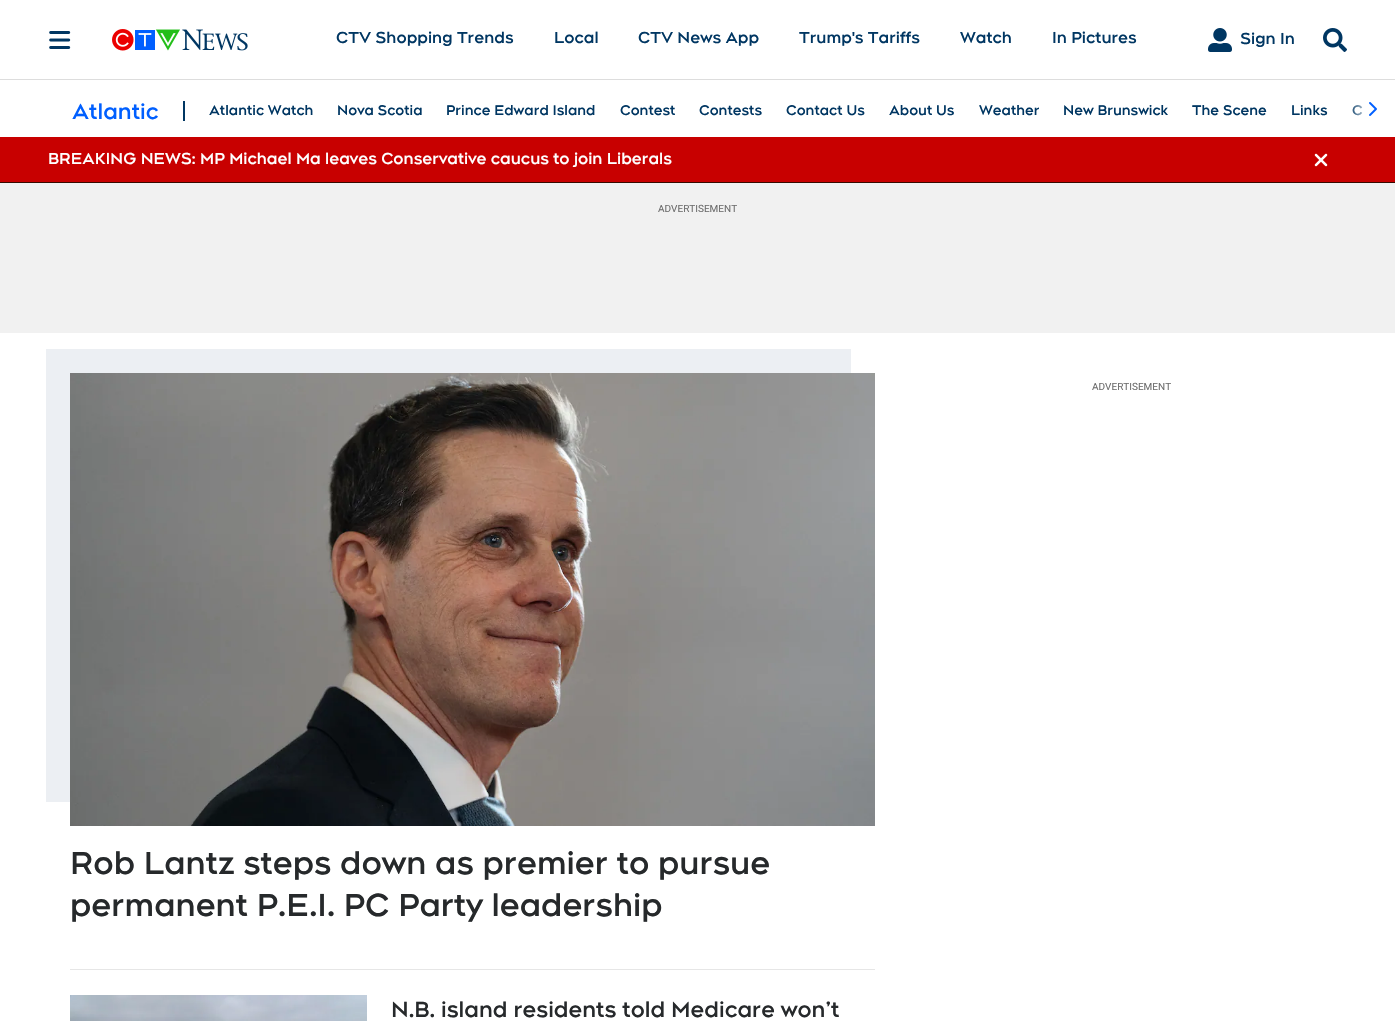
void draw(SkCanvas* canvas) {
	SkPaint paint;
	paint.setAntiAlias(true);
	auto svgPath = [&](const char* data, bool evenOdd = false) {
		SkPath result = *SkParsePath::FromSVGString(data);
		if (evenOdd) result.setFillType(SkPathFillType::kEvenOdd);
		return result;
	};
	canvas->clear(0xffffffff);
	paint.setColor(0xffdddddd);
	canvas->drawRect(SkRect::MakeXYWH(0, 79, 1395, 1), paint);
	canvas->drawImageRect(SkImages::DeferredFromEncodedData(SkData::MakeFromFileName("img1.png")), SkRect::MakeXYWH(49, 31, 22, 18), SkSamplingOptions());
	canvas->drawImageRect(SkImages::DeferredFromEncodedData(SkData::MakeFromFileName("img2.png")), SkRect::MakeXYWH(112, 29, 136, 22), SkSamplingOptions());
	SkFont f1(fontMgr->matchFamilyStyle("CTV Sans", SkFontStyle::Bold()), 16);
	f1.setSubpixel(true);
	paint.setColor(0xff003662);
	canvas->drawString("CTV Shopping Trends", 336, 43, f1, paint);
	canvas->drawString("Local", 554, 43, f1, paint);
	canvas->drawString("CTV News App", 638, 43, f1, paint);
	canvas->drawString("Trump's Tariffs", 799, 43, f1, paint);
	canvas->drawString("Watch", 960, 43, f1, paint);
	canvas->drawString("In Pictures", 1052, 43, f1, paint);
	canvas->drawImageRect(SkImages::DeferredFromEncodedData(SkData::MakeFromFileName("img3.png")), SkRect::MakeXYWH(1208, 28, 24, 24), SkSamplingOptions());
	canvas->drawString("Sign In", 1240, 44, f1, paint);
	canvas->drawImageRect(SkImages::DeferredFromEncodedData(SkData::MakeFromFileName("img4.png")), SkRect::MakeXYWH(1323, 28, 24, 24), SkSamplingOptions());
	SkFont f2(fontMgr->matchFamilyStyle("CTV Sans", SkFontStyle::Bold()), 22);
	f2.setSubpixel(true);
	paint.setColor(0xff005fff);
	canvas->drawString("Atlantic", 72, 119, f2, paint);
	paint.setColor(0xff003662);
	canvas->drawRect(SkRect::MakeXYWH(183, 101, 2, 20), paint);
	SkFont f3(fontMgr->matchFamilyStyle("CTV Sans", SkFontStyle::Bold()), 14);
	f3.setSubpixel(true);
	canvas->drawString("Atlantic Watch", 209, 115, f3, paint);
	canvas->drawString("Nova Scotia", 337, 115, f3, paint);
	canvas->drawString("Prince Edward Island", 446, 115, f3, paint);
	canvas->drawString("Contest", 620, 115, f3, paint);
	canvas->drawString("Contests", 699, 115, f3, paint);
	canvas->drawString("Contact Us", 786, 115, f3, paint);
	canvas->drawString("About Us", 889, 115, f3, paint);
	canvas->drawString("Weather", 979, 115, f3, paint);
	canvas->drawString("New Brunswick", 1063, 115, f3, paint);
	canvas->drawString("The Scene", 1192, 115, f3, paint);
	canvas->drawString("Links", 1291, 115, f3, paint);
	canvas->drawString("C", 1352, 115, f3, paint);
	{
		const SkColor colors[] = {0xffffffff, 0x00ffffff};
		const float stops[] = {0.5, 1};
		const SkPoint ends[] = {{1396, 109}, {1348, 109}};
		paint.setShader(SkGradientShader::MakeLinear(ends, colors, stops, 2, SkTileMode::kClamp));
		paint.setAlpha(255);
	}
	canvas->drawRoundRect(SkRect::MakeXYWH(1348, 96, 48, 25), 4, 4, paint);
	canvas->drawImageRect(SkImages::DeferredFromEncodedData(SkData::MakeFromFileName("img5.png")), SkRect::MakeXYWH(1369, 102, 8, 14), SkSamplingOptions());
	paint.setShader(nullptr);
	paint.setColor(0xffc80000);
	canvas->drawRect(SkRect::MakeXYWH(0, 137, 1395, 45), paint);
	paint.setColor(0xff370a00);
	canvas->drawRect(SkRect::MakeXYWH(0, 182, 1395, 1), paint);
	paint.setColor(0xffffffff);
	canvas->drawString("BREAKING NEWS: MP Michael Ma leaves Conservative caucus to join Liberals", 48, 164, f1, paint);
	canvas->drawImageRect(SkImages::DeferredFromEncodedData(SkData::MakeFromFileName("img6.png")), SkRect::MakeXYWH(1314, 153, 14, 14), SkSamplingOptions());
	paint.setColor(0xfff1f1f1);
	canvas->drawRect(SkRect::MakeXYWH(0, 183, 1395, 150), paint);
	SkFont f4(fontMgr->matchFamilyStyle("Roboto", SkFontStyle::Normal()), 10);
	f4.setSubpixel(true);
	paint.setColor(0xff6e6e6e);
	canvas->drawString("ADVERTISEMENT", 658, 212, f4, paint);
	canvas->drawString("ADVERTISEMENT", 1092, 390, f4, paint);
	paint.setColor(0xffeceff3);
	canvas->drawPath(svgPath("M46 349V802H70V373H851V349Z"), paint);
	canvas->drawImageRect(SkImages::DeferredFromEncodedData(SkData::MakeFromFileName("img7.png")), SkRect::MakeXYWH(70, 373, 805, 453), SkSamplingOptions());
	SkFont f5(fontMgr->matchFamilyStyle("CTV Sans", SkFontStyle::Bold()), 32);
	f5.setSubpixel(true);
	paint.setColor(0xff26292b);
	canvas->drawString("Rob Lantz steps down as premier to pursue", 70, 874, f5, paint);
	canvas->drawString("permanent P.E.I. PC Party leadership", 70, 916, f5, paint);
	paint.setColor(0xffe6e6e6);
	canvas->drawRect(SkRect::MakeXYWH(70, 969, 805, 1), paint);
	canvas->drawImageRect(SkImages::DeferredFromEncodedData(SkData::MakeFromFileName("img8.png")), SkRect::MakeXYWH(70, 995, 297, 26), SkSamplingOptions());
	paint.setColor(0xff26292b);
	canvas->drawString("N.B. island residents told Medicare won’t", 391, 1017, f2, paint);
}
